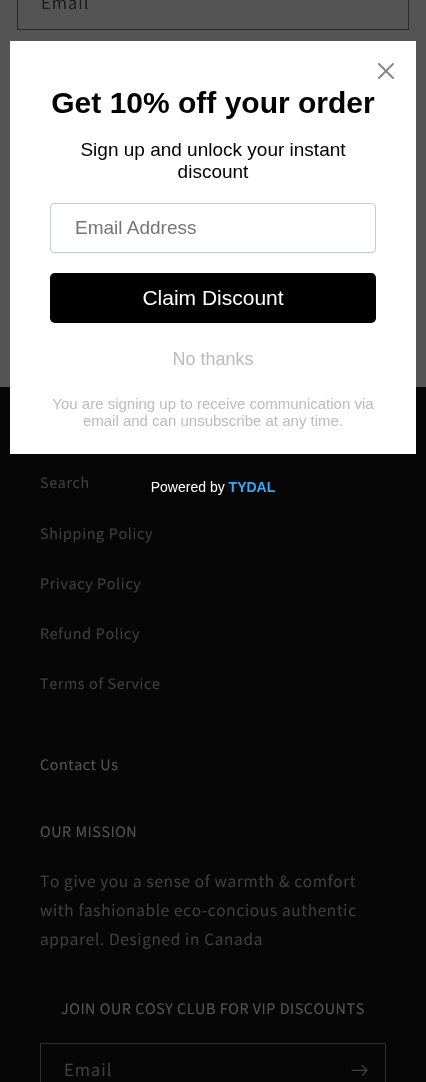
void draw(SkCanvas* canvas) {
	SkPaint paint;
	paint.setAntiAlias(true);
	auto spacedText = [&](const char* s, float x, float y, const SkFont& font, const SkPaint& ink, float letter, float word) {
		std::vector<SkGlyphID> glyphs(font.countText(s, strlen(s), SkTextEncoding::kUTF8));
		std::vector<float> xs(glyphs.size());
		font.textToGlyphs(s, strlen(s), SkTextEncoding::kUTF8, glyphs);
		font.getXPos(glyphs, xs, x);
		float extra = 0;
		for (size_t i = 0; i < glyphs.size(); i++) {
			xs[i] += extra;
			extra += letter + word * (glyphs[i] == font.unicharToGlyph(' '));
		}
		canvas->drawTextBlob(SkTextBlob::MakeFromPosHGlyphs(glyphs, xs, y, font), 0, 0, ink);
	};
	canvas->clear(0xffffffff);
	paint.setStroke(true);
	paint.setStrokeWidth(1);
	paint.setColor(0xff7d7d7d);
	canvas->drawRect(SkRect::MakeXYWH(17.5, -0.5, 391, 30), paint);
	SkFont f1(fontMgr->matchFamilyStyle("Assistant", SkFontStyle::Normal()), 18.5);
	f1.setSubpixel(true);
	paint.setStroke(false);
	paint.setColor(0xff4d4d4d);
	spacedText("Email", 41, 9, f1, paint, 1, 0);
	paint.setColor(0xff121212);
	canvas->drawRect(SkRect::MakeXYWH(0, 387, 426, 695), paint);
	SkFont f2(fontMgr->matchFamilyStyle("Assistant", SkFontStyle::Normal()), 16);
	f2.setSubpixel(true);
	paint.setColor(0xffc4c4c4);
	spacedText("Search", 40, 488, f2, paint, 0.7, 0);
	spacedText("Shipping Policy", 40, 539, f2, paint, 0.7, 0);
	spacedText("Privacy Policy", 40, 589, f2, paint, 0.7, 0);
	spacedText("Refund Policy", 40, 639, f2, paint, 0.7, 0);
	spacedText("Terms of Service", 40, 689, f2, paint, 0.7, 0);
	paint.setColor(0xffffffff);
	spacedText("Contact Us", 40, 770, f2, paint, 0.6, 0);
	spacedText("OUR MISSION", 40, 837, f2, paint, 0.6, 0);
	SkFont f3(fontMgr->matchFamilyStyle("Assistant", SkFontStyle::Normal()), 17.25);
	f3.setSubpixel(true);
	paint.setColor(0xffc4c4c4);
	spacedText("To give you a sense of warmth & comfort", 40, 887, f3, paint, 0.7, 0);
	spacedText("with fashionable eco-concious authentic", 40, 916, f3, paint, 0.7, 0);
	spacedText("apparel. Designed in Canada", 40, 945, f3, paint, 0.7, 0);
	paint.setColor(0xffffffff);
	spacedText("JOIN OUR COSY CLUB FOR VIP DISCOUNTS", 61, 1014, f2, paint, 0.6, 0);
	paint.setStroke(true);
	paint.setColor(0xff949494);
	canvas->drawRect(SkRect::MakeXYWH(40.5, 1043.5, 345, 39), paint);
	paint.setStroke(false);
	paint.setColor(0xffc4c4c4);
	spacedText("Email", 64, 1076, f1, paint, 1, 0);
	canvas->drawImageRect(SkImages::DeferredFromEncodedData(SkData::MakeFromFileName("img2.png")), SkRect::MakeXYWH(351, 1064, 17, 12), SkSamplingOptions());
	canvas->drawImageRect(SkImages::DeferredFromEncodedData(SkData::MakeFromFileName("img1.png")), SkRect::MakeXYWH(0, 0, 426, 1082), SkSamplingOptions());
}
